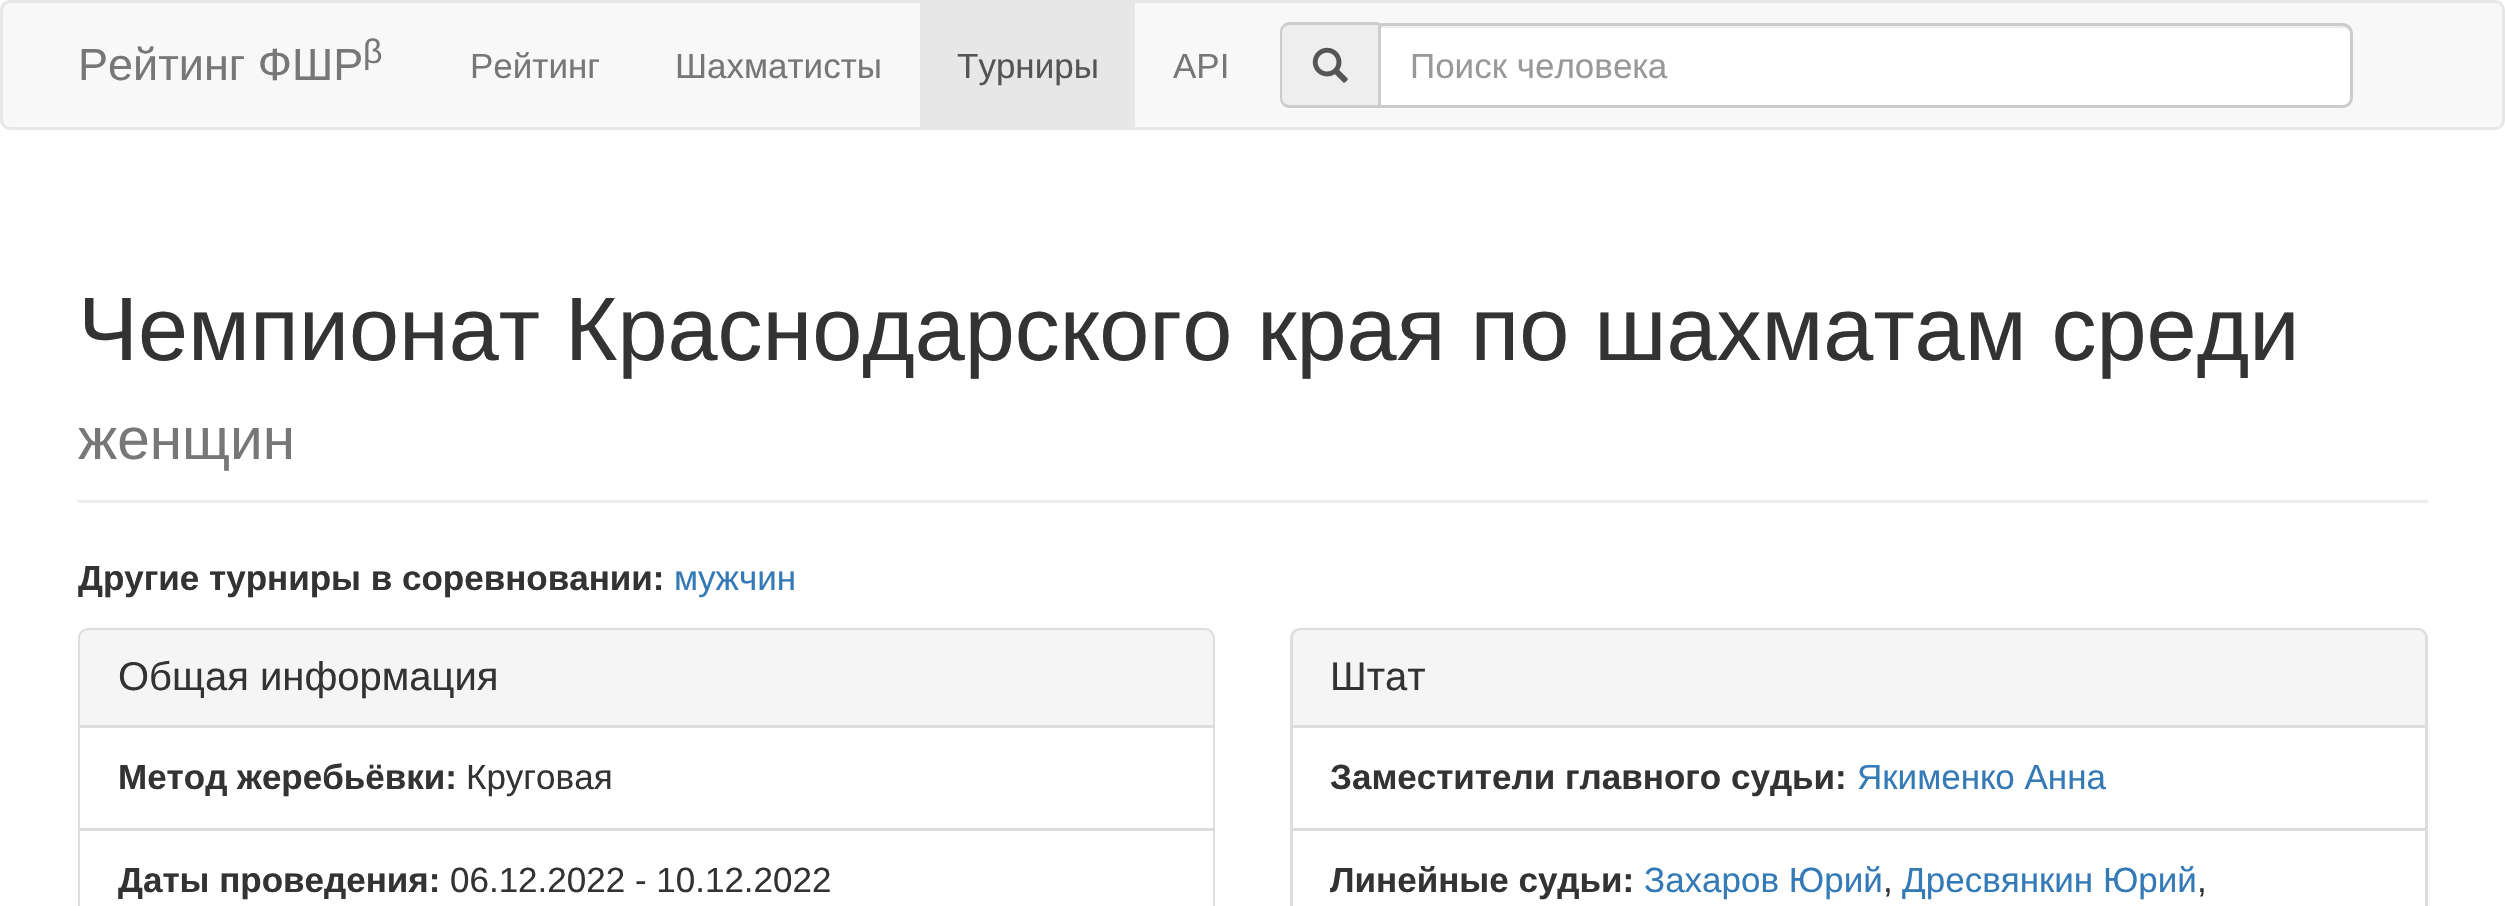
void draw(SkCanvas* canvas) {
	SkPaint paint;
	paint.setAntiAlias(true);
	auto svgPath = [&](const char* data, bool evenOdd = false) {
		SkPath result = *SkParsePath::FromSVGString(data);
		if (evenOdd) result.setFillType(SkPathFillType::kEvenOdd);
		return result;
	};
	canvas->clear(0xffffffff);
	paint.setColor(0xfff8f8f8);
	canvas->drawRoundRect(SkRect::MakeXYWH(1.5, 1.5, 2502, 127), 8.5, 8.5, paint);
	paint.setStroke(true);
	paint.setStrokeWidth(3);
	paint.setColor(0xffe7e7e7);
	canvas->drawRoundRect(SkRect::MakeXYWH(1.5, 1.5, 2502, 127), 8.5, 8.5, paint);
	SkFont f1(fontMgr->matchFamilyStyle("Liberation Sans", SkFontStyle::Normal()), 45);
	f1.setSubpixel(true);
	paint.setStroke(false);
	paint.setColor(0xff777777);
	canvas->drawString("Рейтинг ФШР", 78, 80, f1, paint);
	SkFont f2(fontMgr->matchFamilyStyle("Liberation Sans", SkFontStyle::Normal()), 34);
	f2.setSubpixel(true);
	canvas->drawString("β", 363, 63, f2, paint);
	SkFont f3(fontMgr->matchFamilyStyle("Liberation Sans", SkFontStyle::Normal()), 35);
	f3.setSubpixel(true);
	canvas->drawString("Рейтинг", 470, 78, f3, paint);
	canvas->drawString("Шахматисты", 675, 78, f3, paint);
	paint.setColor(0xffe7e7e7);
	canvas->drawRect(SkRect::MakeXYWH(920, 3, 215, 124), paint);
	paint.setColor(0xff555555);
	canvas->drawString("Турниры", 957, 78, f3, paint);
	paint.setColor(0xff777777);
	canvas->drawString("API", 1173, 78, f3, paint);
	paint.setColor(0xffeeeeee);
	canvas->drawPath(svgPath("M1290 23H1378V108H1290C1284.5 108 1280 103.5 1280 98V33C1280 27.5 1284.5 23 1290 23Z"), paint);
	paint.setColor(0xffcccccc);
	canvas->drawPath(svgPath("M1290 22H1378V108H1290C1284 108 1280 103 1280 98V32C1280 27 1284 22 1290 22ZM1290 25H1378V105H1290C1286 105 1282 102 1282 98V32C1282 28 1286 25 1290 25Z", true), paint);
	canvas->drawImageRect(SkImages::DeferredFromEncodedData(SkData::MakeFromFileName("img1.png")), SkRect::MakeXYWH(1312, 47, 36, 36), SkSamplingOptions());
	paint.setColor(0xffffffff);
	canvas->drawRoundRect(SkRect::MakeXYWH(1378, 23, 975, 85), 10, 10, paint);
	paint.setColor(0x12000000);
	canvas->drawPath(svgPath("M1380 28H2342C2347 28 2350 31 2350 35C2350 30 2348 25 2342 25H1380Z"), paint);
	paint.setStroke(true);
	paint.setColor(0xffcccccc);
	canvas->drawPath(svgPath("M1379.5 24.5H2343C2347.5 24.5 2351.5 28.5 2351.5 33V98C2351.5 102.5 2347.5 106.5 2343 106.5H1379.5Z"), paint);
	paint.setStroke(false);
	paint.setColor(0xff999999);
	canvas->drawString("Поиск человека", 1410, 78, f3, paint);
	paint.setColor(0xffeeeeee);
	canvas->drawRect(SkRect::MakeXYWH(78, 500, 2350, 3), paint);
	SkFont f4(fontMgr->matchFamilyStyle("Liberation Sans", SkFontStyle::Normal()), 90);
	f4.setSubpixel(true);
	paint.setColor(0xff333333);
	canvas->drawString("Чемпионат Краснодарского края по шахматам среди", 78, 360, f4, paint);
	SkFont f5(fontMgr->matchFamilyStyle("Liberation Sans", SkFontStyle::Normal()), 58.5);
	f5.setSubpixel(true);
	paint.setColor(0xff777777);
	canvas->drawString("женщин", 78, 459, f5, paint);
	SkFont f6(fontMgr->matchFamilyStyle("Liberation Sans", SkFontStyle::Bold()), 35);
	f6.setSubpixel(true);
	paint.setColor(0xff333333);
	canvas->drawString("Другие турниры в соревновании:", 78, 590, f6, paint);
	paint.setColor(0xff337ab7);
	canvas->drawString("мужчин", 674, 590, f3, paint);
	paint.setStroke(true);
	paint.setColor(0xffdddddd);
	canvas->drawRoundRect(SkRect::MakeXYWH(79.5, 629.5, 1134, 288), 8.5, 8.5, paint);
	paint.setStroke(false);
	paint.setColor(0xfff5f5f5);
	canvas->drawPath(svgPath("M88 630H1205C1209.5 630 1213 633.5 1213 638V728H80V638C80 633.5 83.5 630 88 630Z"), paint);
	paint.setColor(0xffdddddd);
	canvas->drawRect(SkRect::MakeXYWH(80, 725, 1133, 3), paint);
	SkFont f7(fontMgr->matchFamilyStyle("Liberation Sans", SkFontStyle::Normal()), 40);
	f7.setSubpixel(true);
	paint.setColor(0xff333333);
	canvas->drawString("Общая информация", 118, 690, f7, paint);
	paint.setColor(0xffffffff);
	canvas->drawRect(SkRect::MakeXYWH(80, 728, 1133, 100), paint);
	paint.setColor(0xff333333);
	canvas->drawString("Метод жеребьёвки:", 118, 789, f6, paint);
	canvas->drawString("Круговая", 466, 789, f3, paint);
	paint.setColor(0xffffffff);
	canvas->drawRect(SkRect::MakeXYWH(80, 831, 1133, 75), paint);
	paint.setColor(0xffdddddd);
	canvas->drawRect(SkRect::MakeXYWH(80, 828, 1133, 3), paint);
	paint.setColor(0xff333333);
	canvas->drawString("Даты проведения:", 118, 892, f6, paint);
	canvas->drawString("06.12.2022 - 10.12.2022", 450, 892, f3, paint);
	paint.setStroke(true);
	paint.setColor(0xffdddddd);
	canvas->drawRoundRect(SkRect::MakeXYWH(1291.5, 629.5, 1135, 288), 8.5, 8.5, paint);
	paint.setStroke(false);
	paint.setColor(0xfff5f5f5);
	canvas->drawPath(svgPath("M1301 630H2417C2421.5 630 2425 633.5 2425 638V728H1293V638C1293 633.5 1296.5 630 1301 630Z"), paint);
	paint.setColor(0xffdddddd);
	canvas->drawRect(SkRect::MakeXYWH(1293, 725, 1132, 3), paint);
	paint.setColor(0xff333333);
	canvas->drawString("Штат", 1330, 690, f7, paint);
	canvas->drawString("Заместители главного судьи:", 1330, 789, f6, paint);
	paint.setColor(0xff337ab7);
	canvas->drawString("Якименко Анна", 1857, 789, f3, paint);
	paint.setColor(0xffdddddd);
	canvas->drawRect(SkRect::MakeXYWH(1293, 828, 1132, 3), paint);
	paint.setColor(0xff333333);
	canvas->drawString("Линейные судьи:", 1330, 892, f6, paint);
	paint.setColor(0xff337ab7);
	canvas->drawString("Захаров Юрий", 1644, 892, f3, paint);
	paint.setColor(0xff333333);
	canvas->drawString(",", 1883, 892, f3, paint);
	paint.setColor(0xff337ab7);
	canvas->drawString("Дресвянкин Юрий", 1902, 892, f3, paint);
	paint.setColor(0xff333333);
	canvas->drawString(",", 2197, 892, f3, paint);
}
